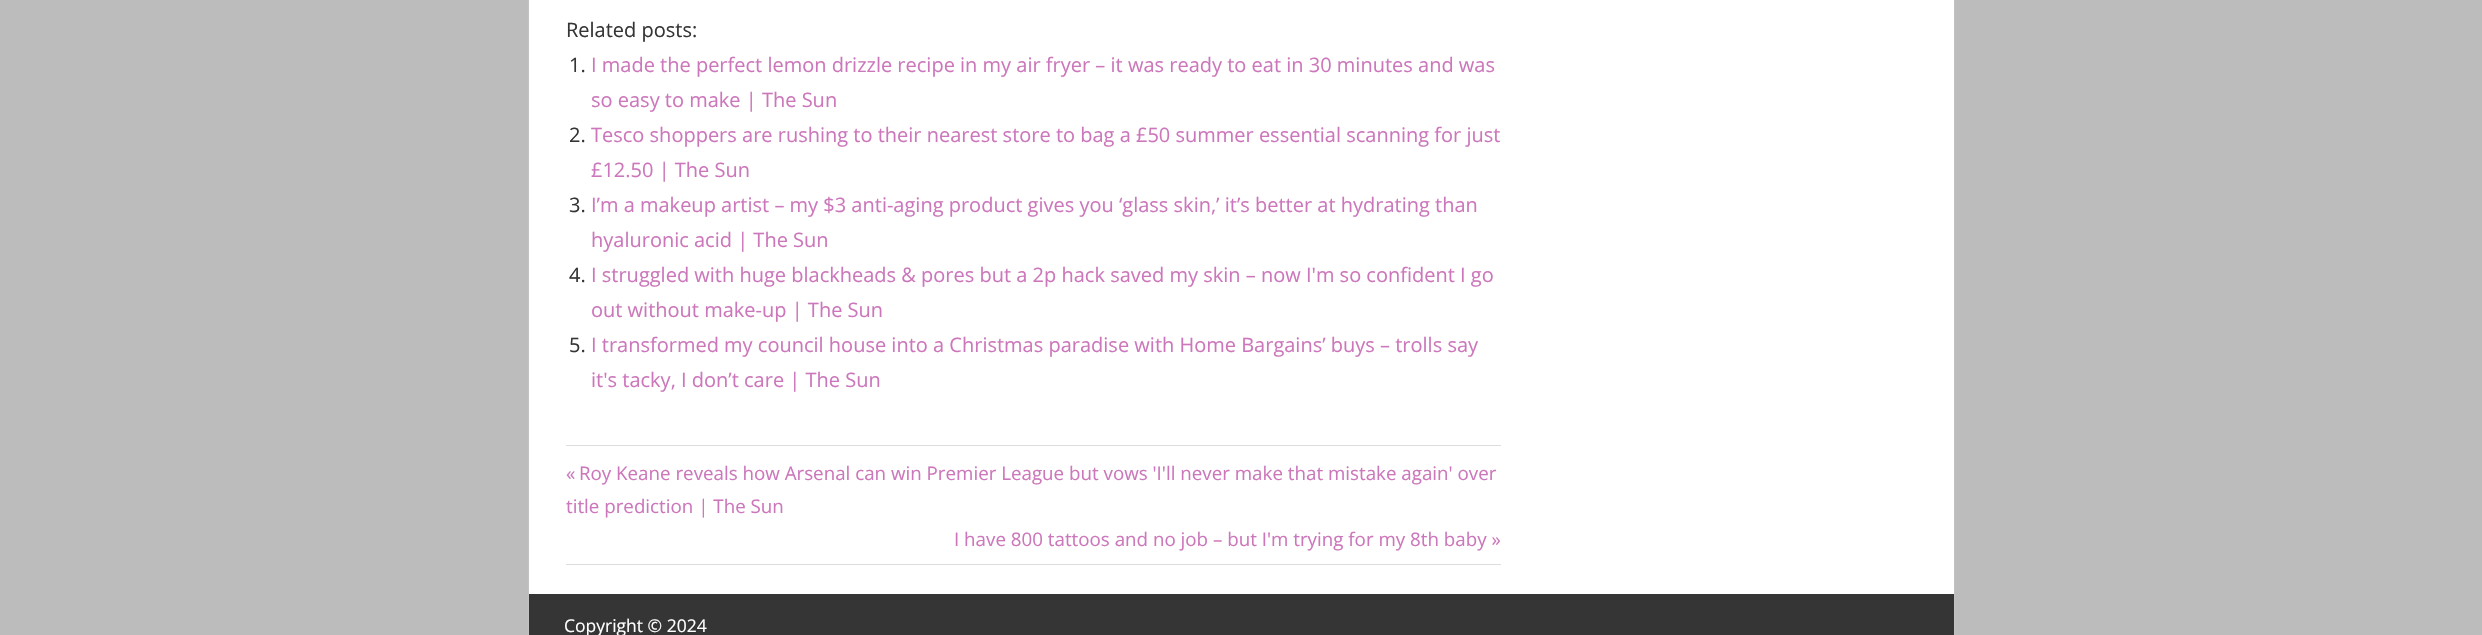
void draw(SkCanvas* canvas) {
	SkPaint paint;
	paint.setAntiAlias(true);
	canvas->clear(0xffbcbcbc);
	paint.setColor(0xffcccccc);
	paint.setMaskFilter(SkMaskFilter::MakeBlur(kNormal_SkBlurStyle, 1));
	canvas->drawRect(SkRect::MakeXYWH(529, -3, 1425, 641), paint);
	paint.setMaskFilter(nullptr);
	paint.setColor(0xffffffff);
	canvas->drawRect(SkRect::MakeXYWH(529, 0, 1425, 594), paint);
	SkFont f1(fontMgr->matchFamilyStyle("Open Sans", SkFontStyle::Normal()), 20);
	f1.setSubpixel(true);
	paint.setColor(0xff353535);
	canvas->drawString("Related posts:", 566, 37, f1, paint);
	canvas->drawString("1.", 569, 72, f1, paint);
	paint.setColor(0xffcc77bb);
	canvas->drawString("I made the perfect lemon drizzle recipe in my air fryer – it was ready to eat in 30 minutes and was", 591, 72, f1, paint);
	canvas->drawString("so easy to make | The Sun", 591, 107, f1, paint);
	paint.setColor(0xff353535);
	canvas->drawString("2.", 569, 142, f1, paint);
	paint.setColor(0xffcc77bb);
	canvas->drawString("Tesco shoppers are rushing to their nearest store to bag a £50 summer essential scanning for just", 591, 142, f1, paint);
	canvas->drawString("£12.50 | The Sun", 591, 177, f1, paint);
	paint.setColor(0xff353535);
	canvas->drawString("3.", 569, 212, f1, paint);
	paint.setColor(0xffcc77bb);
	canvas->drawString("I’m a makeup artist – my $3 anti-aging product gives you ‘glass skin,’ it’s better at hydrating than", 591, 212, f1, paint);
	canvas->drawString("hyaluronic acid | The Sun", 591, 247, f1, paint);
	paint.setColor(0xff353535);
	canvas->drawString("4.", 569, 282, f1, paint);
	paint.setColor(0xffcc77bb);
	canvas->drawString("I struggled with huge blackheads & pores but a 2p hack saved my skin – now I'm so confident I go", 591, 282, f1, paint);
	canvas->drawString("out without make-up | The Sun", 591, 317, f1, paint);
	paint.setColor(0xff353535);
	canvas->drawString("5.", 569, 352, f1, paint);
	paint.setColor(0xffcc77bb);
	canvas->drawString("I transformed my council house into a Christmas paradise with Home Bargains’ buys – trolls say", 591, 352, f1, paint);
	canvas->drawString("it's tacky, I don’t care | The Sun", 591, 387, f1, paint);
	paint.setColor(0xffdddddd);
	canvas->drawRect(SkRect::MakeXYWH(566, 445, 935, 1), paint);
	canvas->drawRect(SkRect::MakeXYWH(566, 564, 935, 1), paint);
	SkFont f2(fontMgr->matchFamilyStyle("Open Sans", SkFontStyle::Normal()), 18.75);
	f2.setSubpixel(true);
	paint.setColor(0xffcc77bb);
	canvas->drawString("«", 566, 480, f2, paint);
	canvas->drawString("Roy Keane reveals how Arsenal can win Premier League but vows 'I'll never make that mistake again' over", 579, 480, f2, paint);
	canvas->drawString("title prediction | The Sun", 566, 513, f2, paint);
	canvas->drawString("I have 800 tattoos and no job – but I'm trying for my 8th baby »", 954, 546, f2, paint);
	paint.setColor(0xff353535);
	canvas->drawRect(SkRect::MakeXYWH(529, 594, 1425, 41), paint);
	SkFont f3(fontMgr->matchFamilyStyle("Open Sans", SkFontStyle::Normal()), 17.5);
	f3.setSubpixel(true);
	paint.setColor(0xffffffff);
	canvas->drawString("Copyright © 2024", 564, 632, f3, paint);
}
